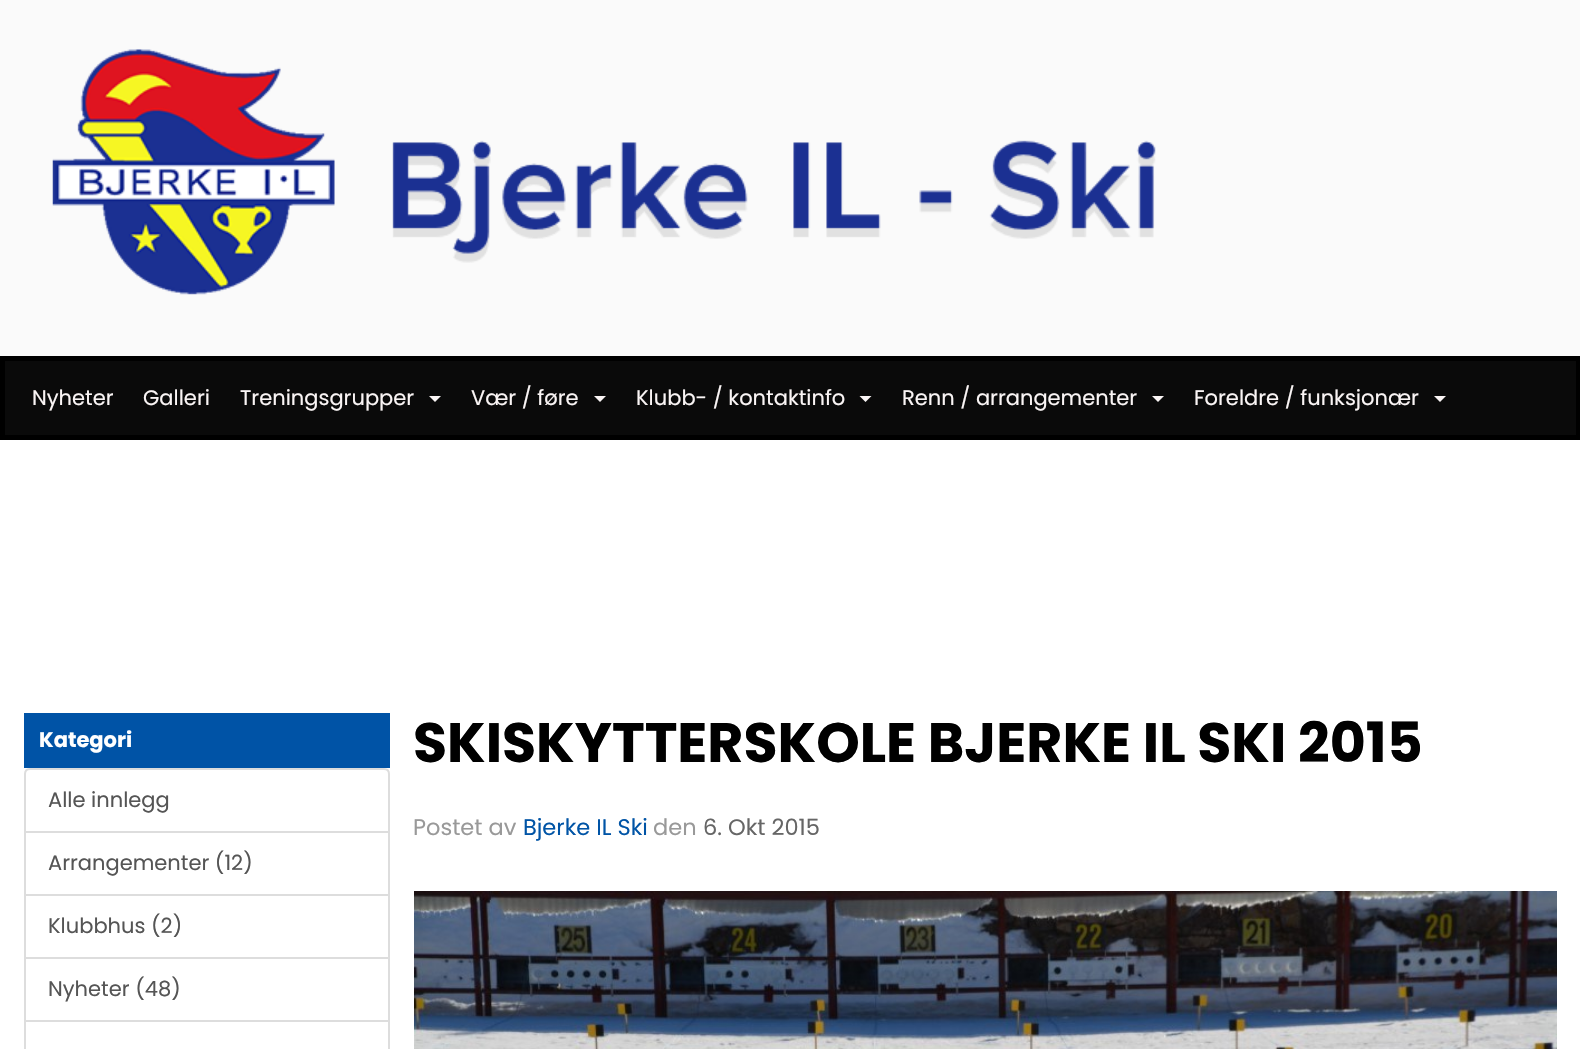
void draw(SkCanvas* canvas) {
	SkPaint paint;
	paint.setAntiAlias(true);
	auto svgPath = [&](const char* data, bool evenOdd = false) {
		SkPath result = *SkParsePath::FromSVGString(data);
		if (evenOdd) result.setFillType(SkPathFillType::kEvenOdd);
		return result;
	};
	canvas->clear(0xfffafafa);
	canvas->drawImageRect(SkImages::DeferredFromEncodedData(SkData::MakeFromFileName("img1.png")), SkRect::MakeXYWH(52, 49, 1104, 246), SkSamplingOptions());
	paint.setColor(0xff0a0a0a);
	canvas->drawRect(SkRect::MakeXYWH(2.5, 358.5, 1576, 79), paint);
	paint.setStroke(true);
	paint.setStrokeWidth(5);
	paint.setColor(0xff000000);
	canvas->drawRect(SkRect::MakeXYWH(2.5, 358.5, 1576, 79), paint);
	SkFont f1(fontMgr->matchFamilyStyle("Poppins", SkFontStyle::Normal()), 21);
	f1.setSubpixel(true);
	paint.setStroke(false);
	paint.setColor(0xfffaf5f5);
	canvas->drawString("Nyheter", 32, 405, f1, paint);
	canvas->drawString("Galleri", 143, 405, f1, paint);
	canvas->drawString("Treningsgrupper", 240, 405, f1, paint);
	canvas->drawPath(svgPath("M429 396H441L435 402Z"), paint);
	canvas->drawString("Vær / føre", 471, 405, f1, paint);
	canvas->drawPath(svgPath("M594 396H606L600 402Z"), paint);
	canvas->drawString("Klubb- / kontaktinfo", 636, 405, f1, paint);
	canvas->drawPath(svgPath("M859.5 396H871.5L865.5 402Z"), paint);
	canvas->drawString("Renn / arrangementer", 902, 405, f1, paint);
	canvas->drawPath(svgPath("M1152 396H1164L1158 402Z"), paint);
	canvas->drawString("Foreldre / funksjonær", 1194, 405, f1, paint);
	canvas->drawPath(svgPath("M1434 396H1446L1440 402Z"), paint);
	paint.setColor(0xffffffff);
	canvas->drawRect(SkRect::MakeXYWH(0, 440, 1580, 609), paint);
	paint.setColor(0xff0053a6);
	canvas->drawRect(SkRect::MakeXYWH(24, 713, 366, 55), paint);
	SkFont f2(fontMgr->matchFamilyStyle("Poppins", SkFontStyle::Bold()), 21);
	f2.setSubpixel(true);
	paint.setColor(0xffffffff);
	canvas->drawString("Kategori", 39, 747, f2, paint);
	paint.setStroke(true);
	paint.setStrokeWidth(2);
	paint.setColor(0xffdddddd);
	canvas->drawPath(svgPath("M30 769H384C387 769 389 771 389 774V832H25V774C25 771 27 769 30 769Z"), paint);
	paint.setStroke(false);
	paint.setColor(0xff555555);
	canvas->drawString("Alle innlegg", 48, 807, f1, paint);
	paint.setStroke(true);
	paint.setColor(0xffdddddd);
	canvas->drawRect(SkRect::MakeXYWH(25, 832, 364, 63), paint);
	paint.setStroke(false);
	paint.setColor(0xff555555);
	canvas->drawString("Arrangementer (12)", 48, 870, f1, paint);
	paint.setStroke(true);
	paint.setColor(0xffdddddd);
	canvas->drawRect(SkRect::MakeXYWH(25, 895, 364, 63), paint);
	paint.setStroke(false);
	paint.setColor(0xff555555);
	canvas->drawString("Klubbhus (2)", 48, 933, f1, paint);
	paint.setStroke(true);
	paint.setColor(0xffdddddd);
	canvas->drawRect(SkRect::MakeXYWH(25, 958, 364, 63), paint);
	paint.setStroke(false);
	paint.setColor(0xff555555);
	canvas->drawString("Nyheter (48)", 48, 996, f1, paint);
	paint.setStroke(true);
	paint.setColor(0xffdddddd);
	canvas->drawRect(SkRect::MakeXYWH(25, 1021, 364, 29), paint);
	SkFont f3(fontMgr->matchFamilyStyle("Poppins", SkFontStyle::Bold()), 55.4);
	f3.setSubpixel(true);
	paint.setStroke(false);
	paint.setColor(0xff000000);
	canvas->drawString("SKISKYTTERSKOLE BJERKE IL SKI 2015", 413, 762, f3, paint);
	SkFont f4(fontMgr->matchFamilyStyle("Poppins", SkFontStyle::Normal()), 22.5);
	f4.setSubpixel(true);
	paint.setColor(0xff999999);
	canvas->drawString("Postet av", 413, 835, f4, paint);
	paint.setColor(0xff0054a6);
	canvas->drawString("Bjerke IL Ski", 523, 835, f4, paint);
	paint.setColor(0xff999999);
	canvas->drawString("den", 653, 835, f4, paint);
	paint.setColor(0xff666666);
	canvas->drawString("6. Okt 2015", 703, 835, f4, paint);
	canvas->drawImageRect(SkImages::DeferredFromEncodedData(SkData::MakeFromFileName("img2.png")), SkRect::MakeXYWH(414, 891, 1143, 158), SkSamplingOptions());
}
